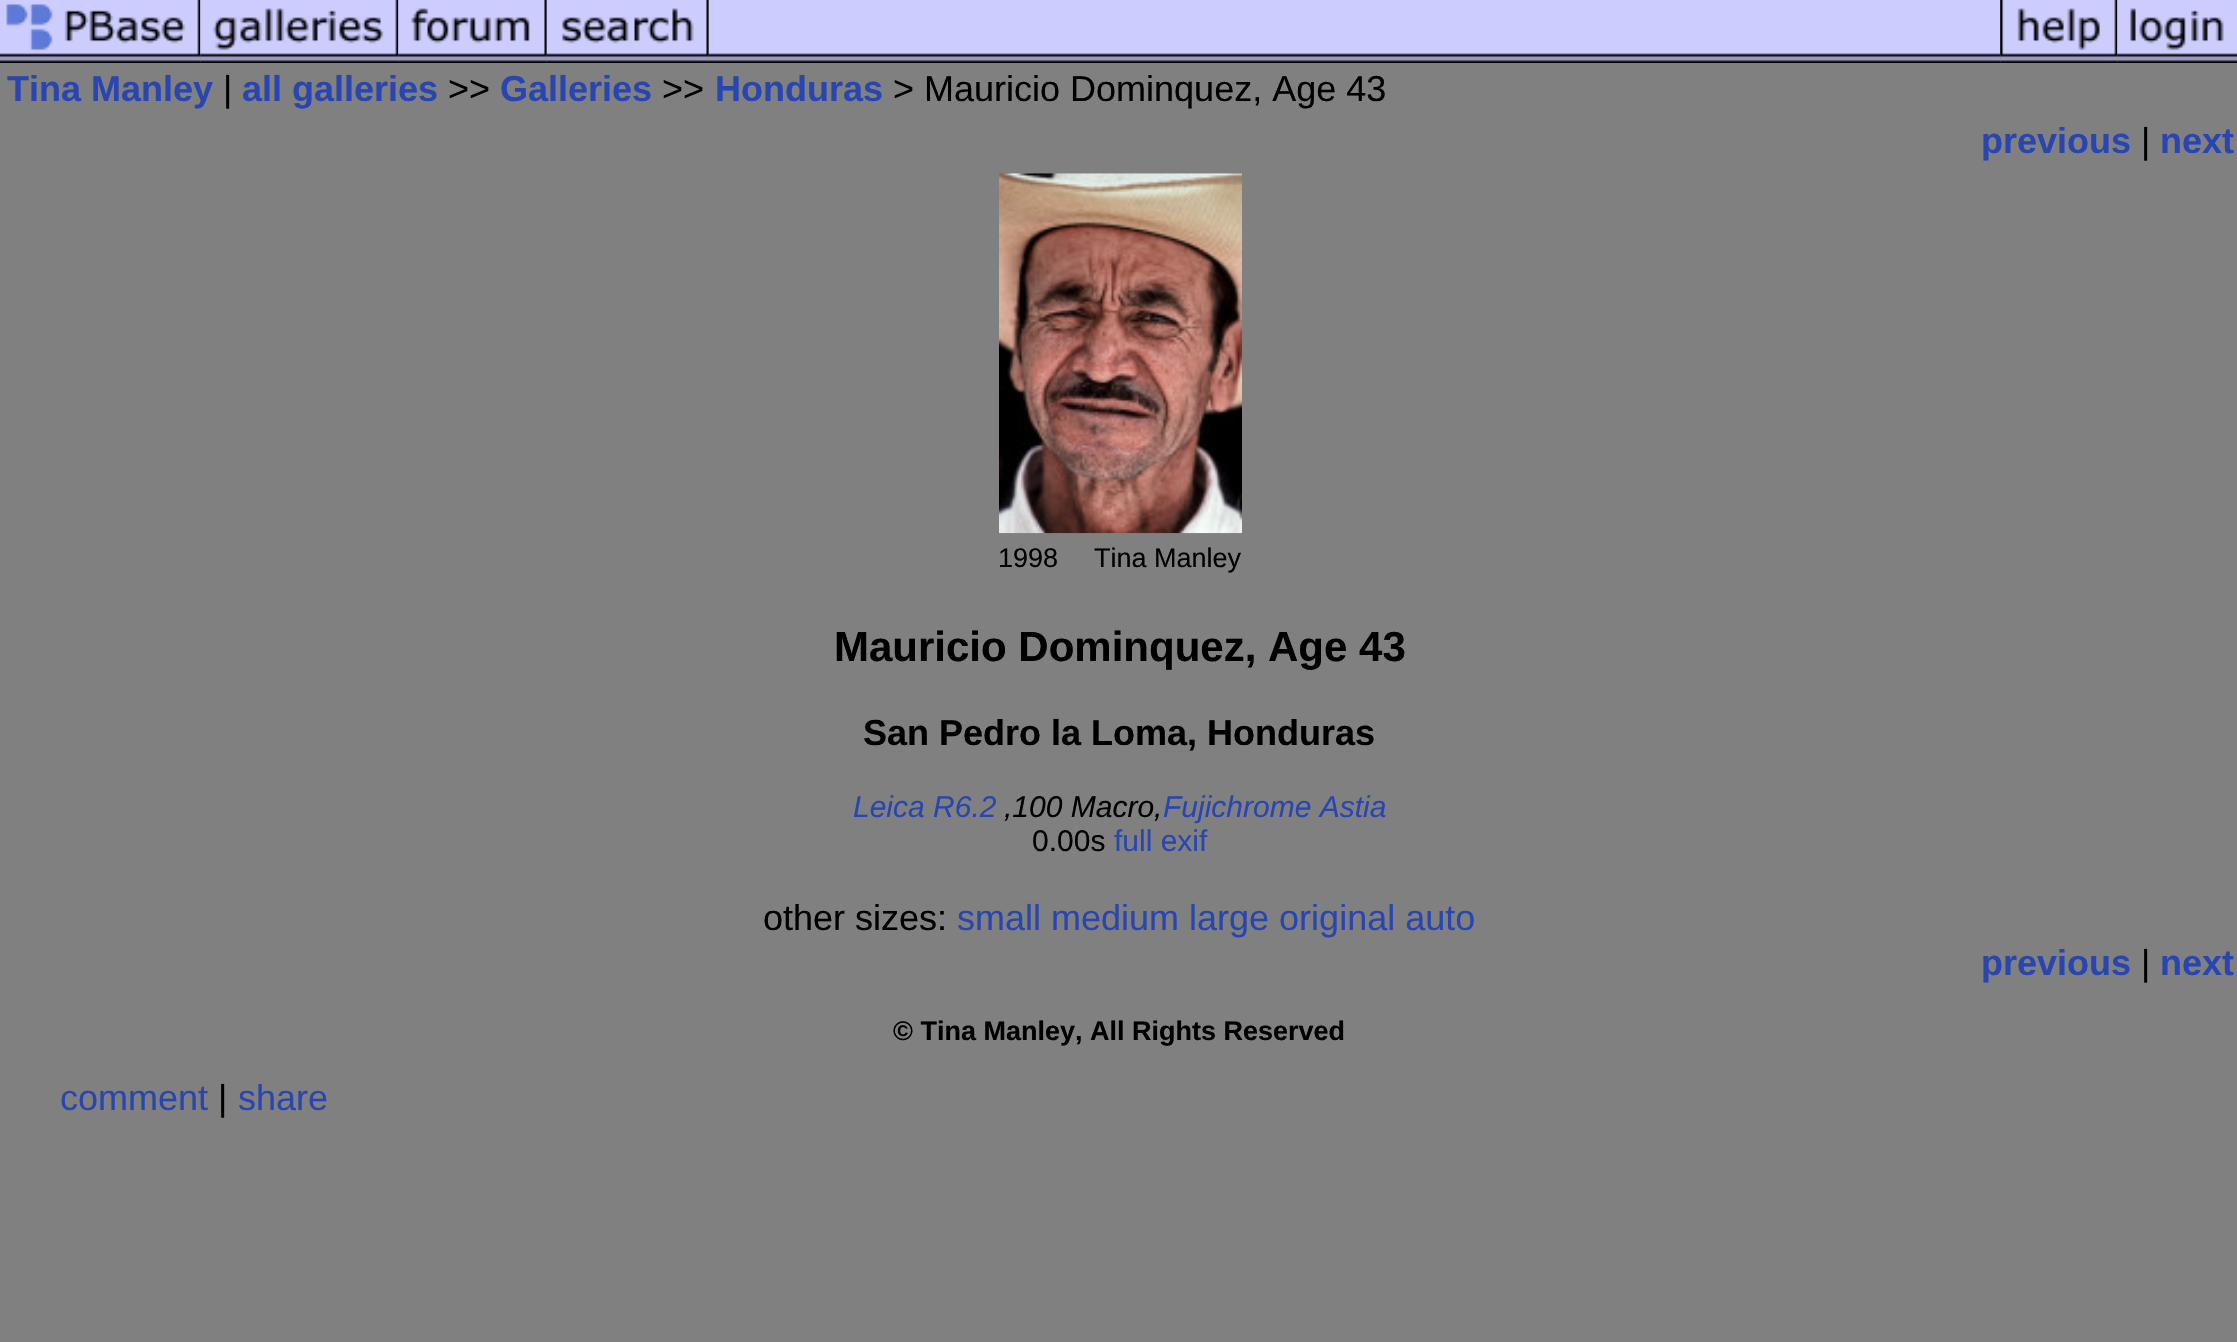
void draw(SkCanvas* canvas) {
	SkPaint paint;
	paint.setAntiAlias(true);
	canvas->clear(0xff808080);
	canvas->drawImageRect(SkImages::DeferredFromEncodedData(SkData::MakeFromFileName("img1.png")), SkRect::MakeXYWH(0, 0, 201, 63), SkSamplingOptions());
	canvas->drawImageRect(SkImages::DeferredFromEncodedData(SkData::MakeFromFileName("img2.png")), SkRect::MakeXYWH(200, 0, 199, 63), SkSamplingOptions());
	canvas->drawImageRect(SkImages::DeferredFromEncodedData(SkData::MakeFromFileName("img3.png")), SkRect::MakeXYWH(398, 0, 149, 63), SkSamplingOptions());
	canvas->drawImageRect(SkImages::DeferredFromEncodedData(SkData::MakeFromFileName("img4.png")), SkRect::MakeXYWH(546, 0, 163, 63), SkSamplingOptions());
	canvas->drawImageRect(SkImages::DeferredFromEncodedData(SkData::MakeFromFileName("img5.png")), SkRect::MakeXYWH(708, 0, 1293, 63), SkSamplingOptions());
	canvas->drawImageRect(SkImages::DeferredFromEncodedData(SkData::MakeFromFileName("img6.png")), SkRect::MakeXYWH(2000, 0, 118, 63), SkSamplingOptions());
	canvas->drawImageRect(SkImages::DeferredFromEncodedData(SkData::MakeFromFileName("img7.png")), SkRect::MakeXYWH(2117, 0, 120, 63), SkSamplingOptions());
	SkFont f1(fontMgr->matchFamilyStyle("Liberation Sans", SkFontStyle::Bold()), 36);
	f1.setSubpixel(true);
	paint.setColor(0xff2845b1);
	canvas->drawString("Tina Manley", 7, 101, f1, paint);
	SkFont f2(fontMgr->matchFamilyStyle("Liberation Sans", SkFontStyle::Normal()), 36);
	f2.setSubpixel(true);
	paint.setColor(0xff000000);
	canvas->drawString("|", 223, 101, f2, paint);
	paint.setColor(0xff2845b1);
	canvas->drawString("all galleries", 242, 101, f1, paint);
	paint.setColor(0xff000000);
	canvas->drawString(">>", 448, 101, f2, paint);
	paint.setColor(0xff2845b1);
	canvas->drawString("Galleries", 500, 101, f1, paint);
	paint.setColor(0xff000000);
	canvas->drawString(">>", 662, 101, f2, paint);
	paint.setColor(0xff2845b1);
	canvas->drawString("Honduras", 715, 101, f1, paint);
	paint.setColor(0xff000000);
	canvas->drawString("> Mauricio Dominquez, Age 43", 893, 101, f2, paint);
	paint.setColor(0xff2845b1);
	canvas->drawString("previous", 1981, 153, f1, paint);
	paint.setColor(0xff000000);
	canvas->drawString("|", 2141, 153, f2, paint);
	paint.setColor(0xff2845b1);
	canvas->drawString("next", 2160, 153, f1, paint);
	canvas->drawImageRect(SkImages::DeferredFromEncodedData(SkData::MakeFromFileName("img8.png")), SkRect::MakeXYWH(999, 173, 243, 361), SkSamplingOptions());
	SkFont f3(fontMgr->matchFamilyStyle("Liberation Sans", SkFontStyle::Normal()), 27);
	f3.setSubpixel(true);
	paint.setColor(0xff000000);
	canvas->drawString("1998", 998, 567, f3, paint);
	canvas->drawString("Tina Manley", 1094, 567, f3, paint);
	SkFont f4(fontMgr->matchFamilyStyle("Liberation Sans", SkFontStyle::Bold()), 42);
	f4.setSubpixel(true);
	canvas->drawString("Mauricio Dominquez, Age 43", 834, 661, f4, paint);
	canvas->drawString("San Pedro la Loma, Honduras", 863, 745, f1, paint);
	SkFont f5(fontMgr->matchFamilyStyle("Liberation Sans", SkFontStyle::Italic()), 30);
	f5.setSubpixel(true);
	paint.setColor(0xff2845b1);
	canvas->drawString("Leica R6.2", 853, 817, f5, paint);
	paint.setColor(0xff000000);
	canvas->drawString(",100 Macro,", 1004, 817, f5, paint);
	paint.setColor(0xff2845b1);
	canvas->drawString("Fujichrome Astia", 1163, 817, f5, paint);
	SkFont f6(fontMgr->matchFamilyStyle("Liberation Sans", SkFontStyle::Normal()), 30);
	f6.setSubpixel(true);
	paint.setColor(0xff000000);
	canvas->drawString("0.00s", 1032, 851, f6, paint);
	paint.setColor(0xff2845b1);
	canvas->drawString("full exif", 1114, 851, f6, paint);
	paint.setColor(0xff000000);
	canvas->drawString("other sizes:", 763, 930, f2, paint);
	paint.setColor(0xff2845b1);
	canvas->drawString("small medium large original auto", 957, 930, f2, paint);
	canvas->drawString("previous", 1981, 975, f1, paint);
	paint.setColor(0xff000000);
	canvas->drawString("|", 2141, 975, f2, paint);
	paint.setColor(0xff2845b1);
	canvas->drawString("next", 2160, 975, f1, paint);
	SkFont f7(fontMgr->matchFamilyStyle("Liberation Sans", SkFontStyle::Bold()), 27);
	f7.setSubpixel(true);
	paint.setColor(0xff000000);
	canvas->drawString("© Tina Manley, All Rights Reserved", 893, 1040, f7, paint);
	paint.setColor(0xff2845b1);
	canvas->drawString("comment", 60, 1110, f2, paint);
	paint.setColor(0xff000000);
	canvas->drawString("|", 218, 1110, f2, paint);
	paint.setColor(0xff2845b1);
	canvas->drawString("share", 238, 1110, f2, paint);
}
